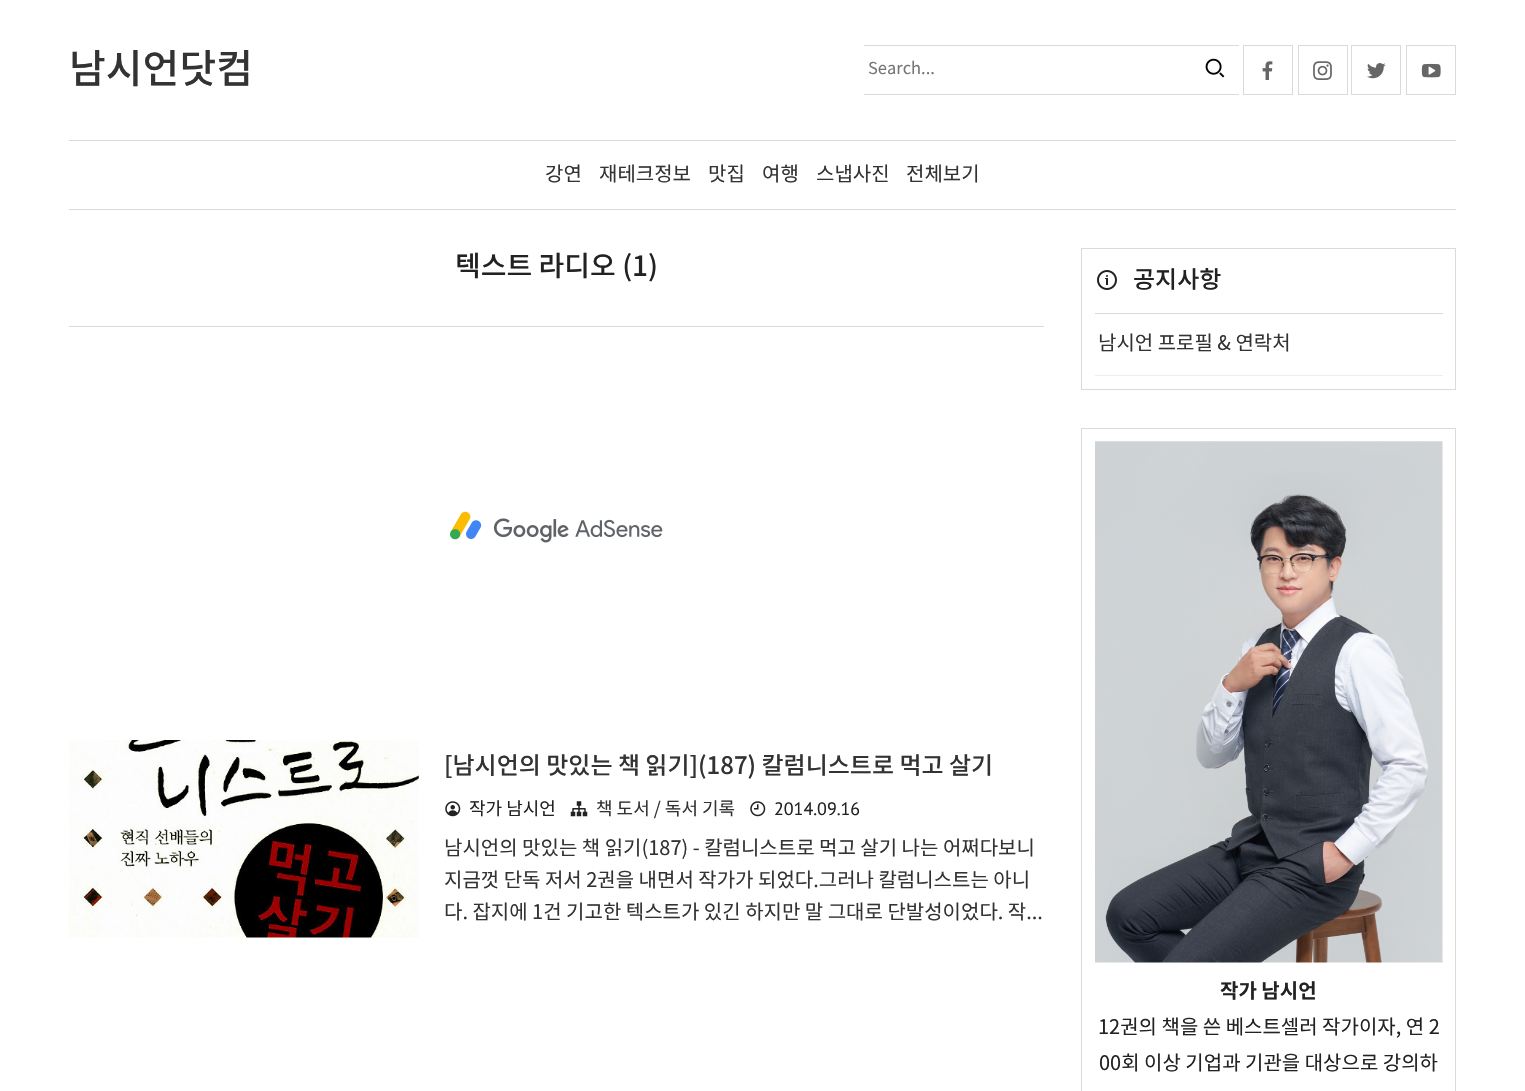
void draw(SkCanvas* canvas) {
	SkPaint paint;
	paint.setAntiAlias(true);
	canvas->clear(0xffffffff);
	SkFont f1(fontMgr->matchFamilyStyle("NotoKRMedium", SkFontStyle(500, SkFontStyle::kNormal_Width, SkFontStyle::kUpright_Slant)), 40);
	f1.setSubpixel(true);
	paint.setColor(0xff333333);
	canvas->drawString("남시언닷컴", 69, 83, f1, paint);
	paint.setColor(0xffdadada);
	canvas->drawRect(SkRect::MakeXYWH(864, 45, 375, 1), paint);
	canvas->drawRect(SkRect::MakeXYWH(864, 94, 375, 1), paint);
	SkFont f2(fontMgr->matchFamilyStyle("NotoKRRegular", SkFontStyle::Normal()), 16.5);
	f2.setSubpixel(true);
	paint.setColor(0xff757575);
	canvas->drawString("Search...", 868, 74, f2, paint);
	canvas->drawImageRect(SkImages::DeferredFromEncodedData(SkData::MakeFromFileName("img1.png")), SkRect::MakeXYWH(1205, 58, 20, 20), SkSamplingOptions());
	paint.setStroke(true);
	paint.setStrokeWidth(1);
	paint.setColor(0xffdadada);
	canvas->drawRect(SkRect::MakeXYWH(1243.5, 45.5, 49, 49), paint);
	canvas->drawImageRect(SkImages::DeferredFromEncodedData(SkData::MakeFromFileName("img2.png")), SkRect::MakeXYWH(1262, 61, 11, 19), SkSamplingOptions());
	canvas->drawRect(SkRect::MakeXYWH(1298.5, 45.5, 49, 49), paint);
	canvas->drawImageRect(SkImages::DeferredFromEncodedData(SkData::MakeFromFileName("img3.png")), SkRect::MakeXYWH(1313, 61, 19, 19), SkSamplingOptions());
	canvas->drawRect(SkRect::MakeXYWH(1351.5, 45.5, 49, 49), paint);
	canvas->drawImageRect(SkImages::DeferredFromEncodedData(SkData::MakeFromFileName("img4.png")), SkRect::MakeXYWH(1367, 63, 19, 16), SkSamplingOptions());
	canvas->drawRect(SkRect::MakeXYWH(1406.5, 45.5, 49, 49), paint);
	canvas->drawImageRect(SkImages::DeferredFromEncodedData(SkData::MakeFromFileName("img5.png")), SkRect::MakeXYWH(1421, 63, 20, 15), SkSamplingOptions());
	paint.setStroke(false);
	canvas->drawRect(SkRect::MakeXYWH(69, 140, 1387, 1), paint);
	canvas->drawRect(SkRect::MakeXYWH(69, 209, 1387, 1), paint);
	SkFont f3(fontMgr->matchFamilyStyle("NotoKRRegular", SkFontStyle::Normal()), 20);
	f3.setSubpixel(true);
	paint.setColor(0xff333333);
	canvas->drawString("강연", 545, 181, f3, paint);
	canvas->drawString("재테크정보", 599, 181, f3, paint);
	canvas->drawString("맛집", 708, 181, f3, paint);
	canvas->drawString("여행", 762, 181, f3, paint);
	canvas->drawString("스냅사진", 816, 181, f3, paint);
	canvas->drawString("전체보기", 906, 181, f3, paint);
	paint.setColor(0xffdadada);
	canvas->drawRect(SkRect::MakeXYWH(69, 326, 975, 1), paint);
	SkFont f4(fontMgr->matchFamilyStyle("NotoKRMedium", SkFontStyle(500, SkFontStyle::kNormal_Width, SkFontStyle::kUpright_Slant)), 28);
	f4.setSubpixel(true);
	paint.setColor(0xff222222);
	canvas->drawString("텍스트 라디오 (1)", 455, 276, f4, paint);
	canvas->drawImageRect(SkImages::DeferredFromEncodedData(SkData::MakeFromFileName("img6.png")), SkRect::MakeXYWH(450, 511, 213, 32), SkSamplingOptions());
	canvas->drawImageRect(SkImages::DeferredFromEncodedData(SkData::MakeFromFileName("img7.png")), SkRect::MakeXYWH(68, 740, 351, 198), SkSamplingOptions());
	SkFont f5(fontMgr->matchFamilyStyle("NotoKRMedium", SkFontStyle(500, SkFontStyle::kNormal_Width, SkFontStyle::kUpright_Slant)), 24);
	f5.setSubpixel(true);
	paint.setColor(0xff333333);
	canvas->drawString("[남시언의 맛있는 책 읽기](187) 칼럼니스트로 먹고 살기", 444, 774, f5, paint);
	canvas->drawImageRect(SkImages::DeferredFromEncodedData(SkData::MakeFromFileName("img8.png")), SkRect::MakeXYWH(445, 801, 16, 16), SkSamplingOptions());
	SkFont f6(fontMgr->matchFamilyStyle("NotoKRRegular", SkFontStyle::Normal()), 18);
	f6.setSubpixel(true);
	paint.setColor(0xff222222);
	canvas->drawString("작가 남시언", 469, 815, f6, paint);
	canvas->drawImageRect(SkImages::DeferredFromEncodedData(SkData::MakeFromFileName("img9.png")), SkRect::MakeXYWH(570, 801, 18, 16), SkSamplingOptions());
	paint.setColor(0xff333333);
	canvas->drawString("책 도서 / 독서 기록", 596, 815, f6, paint);
	canvas->drawImageRect(SkImages::DeferredFromEncodedData(SkData::MakeFromFileName("img10.png")), SkRect::MakeXYWH(750, 801, 16, 16), SkSamplingOptions());
	SkFont f7(fontMgr->matchFamilyStyle("PT Sans", SkFontStyle::Normal()), 18);
	f7.setSubpixel(true);
	paint.setColor(0xff222222);
	canvas->drawString("2014.09.16", 774, 815, f7, paint);
	paint.setColor(0xff333333);
	canvas->drawString("남시언의 맛있는 책 읽기(187) - 칼럼니스트로 먹고 살기 나는 어쩌다보니", 444, 855, f3, paint);
	canvas->drawString("지금껏 단독 저서 2권을 내면서 작가가 되었다.그러나 칼럼니스트는 아니", 444, 887, f3, paint);
	canvas->drawString("다. 잡지에 1건 기고한 텍스트가 있긴 하지만 말 그대로 단발성이었다. 작...", 444, 919, f3, paint);
	paint.setStroke(true);
	paint.setColor(0xffdadada);
	canvas->drawRect(SkRect::MakeXYWH(1081.5, 248.5, 374, 141), paint);
	paint.setStroke(false);
	canvas->drawRect(SkRect::MakeXYWH(1095, 313, 348, 1), paint);
	canvas->drawImageRect(SkImages::DeferredFromEncodedData(SkData::MakeFromFileName("img11.png")), SkRect::MakeXYWH(1097, 270, 20, 20), SkSamplingOptions());
	paint.setColor(0xff222222);
	canvas->drawString("공지사항", 1133, 288, f5, paint);
	paint.setColor(0xffeeeeee);
	canvas->drawRect(SkRect::MakeXYWH(1095, 375, 348, 1), paint);
	paint.setColor(0xff333333);
	canvas->drawString("남시언 프로필 & 연락처", 1098, 350, f3, paint);
	paint.setStroke(true);
	paint.setColor(0xffdadada);
	canvas->drawRect(SkRect::MakeXYWH(1081.5, 428.5, 374, 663), paint);
	canvas->drawImageRect(SkImages::DeferredFromEncodedData(SkData::MakeFromFileName("img12.png")), SkRect::MakeXYWH(1095, 441, 348, 522), SkSamplingOptions());
	SkFont f8(fontMgr->matchFamilyStyle("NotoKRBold", SkFontStyle::Bold()), 20);
	f8.setSubpixel(true);
	paint.setStroke(false);
	paint.setColor(0xff222222);
	canvas->drawString("작가 남시언", 1220, 998, f8, paint);
	canvas->drawString("12권의 책을 쓴 베스트셀러 작가이자, 연 2", 1098, 1034, f3, paint);
	canvas->drawString("00회 이상 기업과 기관을 대상으로 강의하", 1099, 1070, f3, paint);
}
